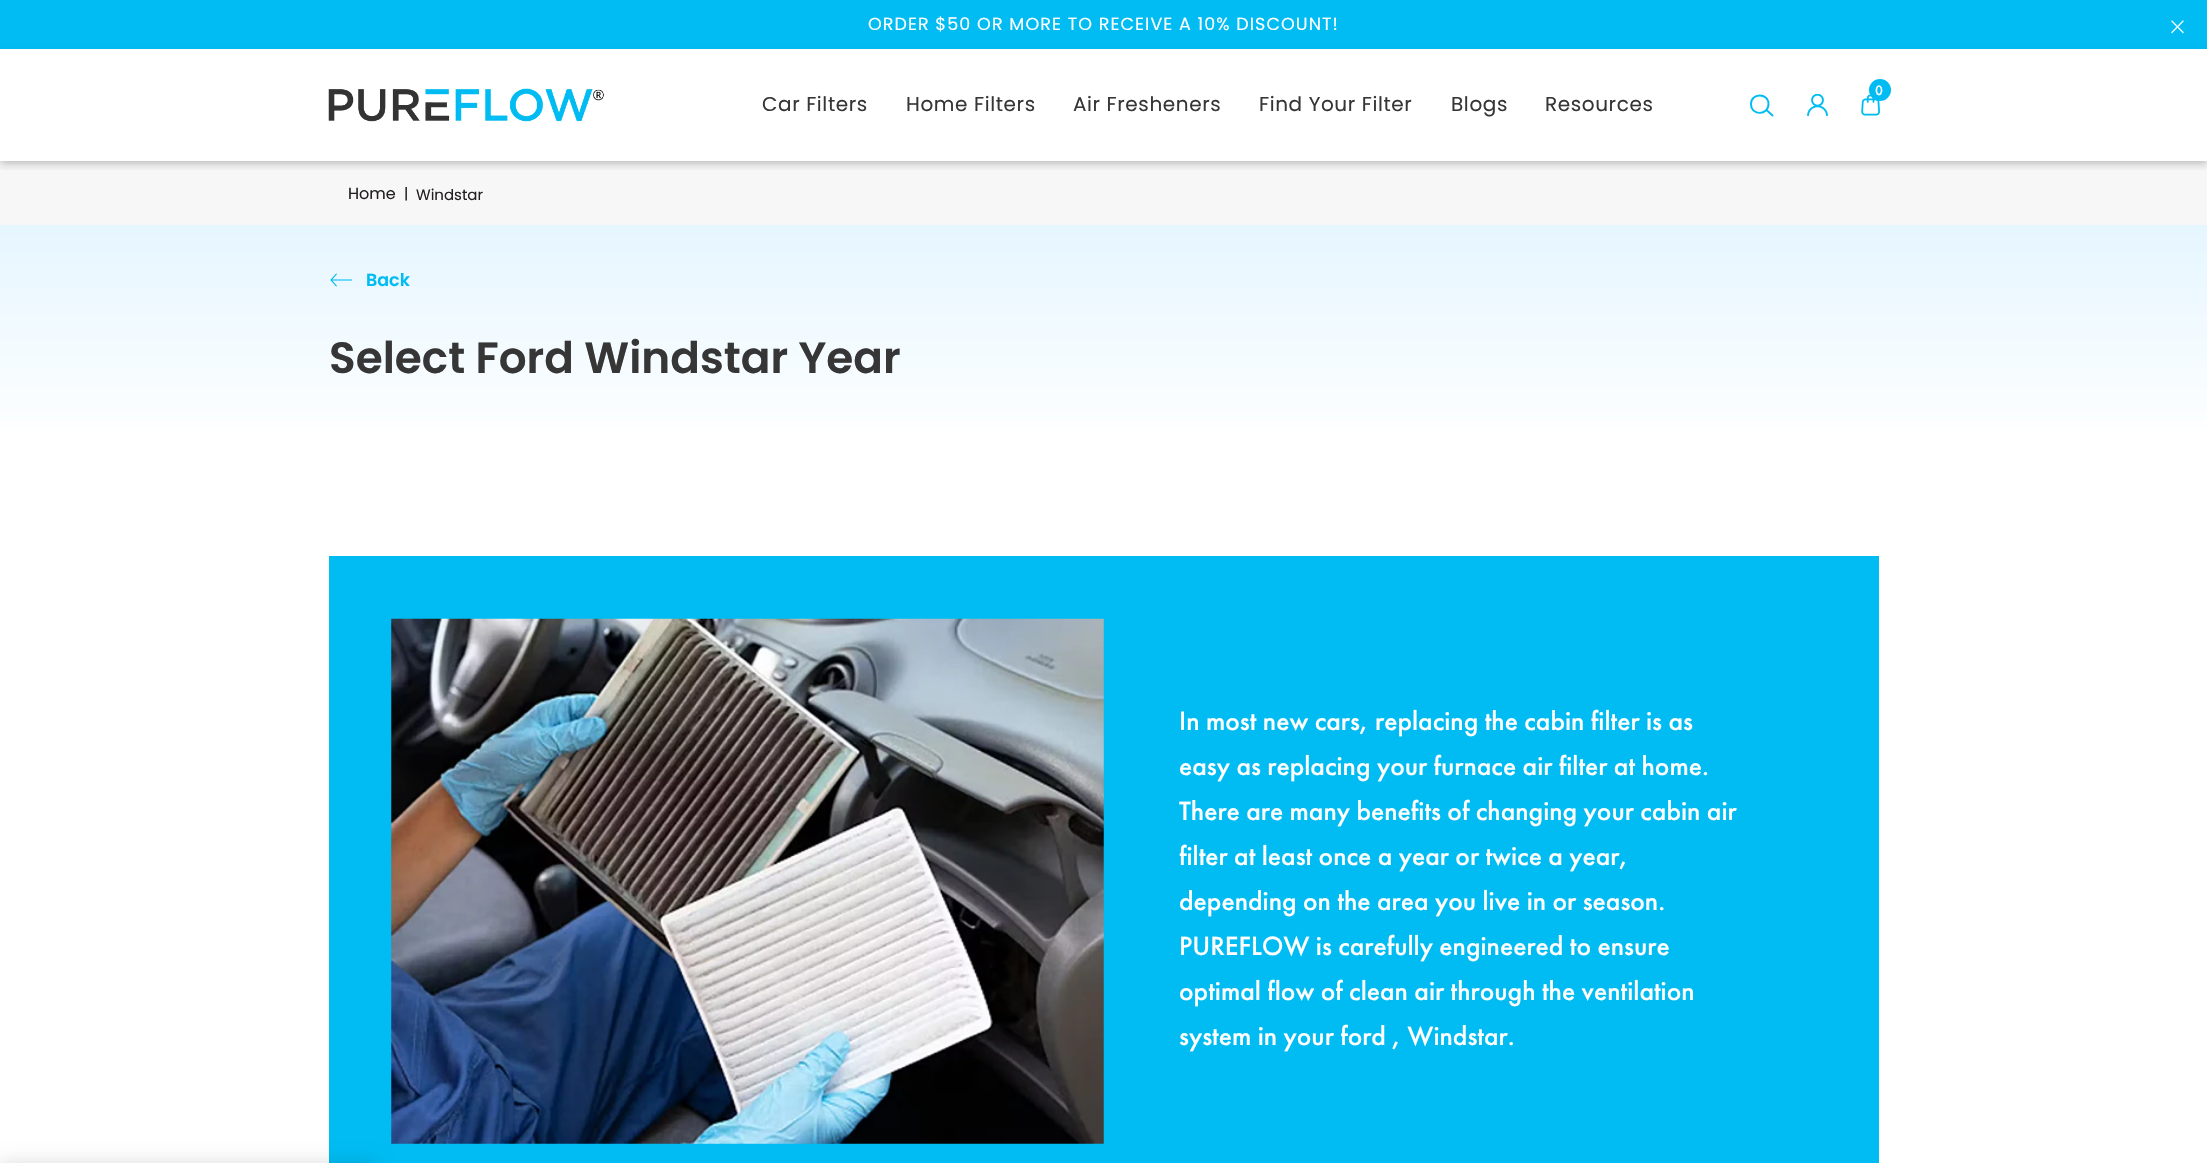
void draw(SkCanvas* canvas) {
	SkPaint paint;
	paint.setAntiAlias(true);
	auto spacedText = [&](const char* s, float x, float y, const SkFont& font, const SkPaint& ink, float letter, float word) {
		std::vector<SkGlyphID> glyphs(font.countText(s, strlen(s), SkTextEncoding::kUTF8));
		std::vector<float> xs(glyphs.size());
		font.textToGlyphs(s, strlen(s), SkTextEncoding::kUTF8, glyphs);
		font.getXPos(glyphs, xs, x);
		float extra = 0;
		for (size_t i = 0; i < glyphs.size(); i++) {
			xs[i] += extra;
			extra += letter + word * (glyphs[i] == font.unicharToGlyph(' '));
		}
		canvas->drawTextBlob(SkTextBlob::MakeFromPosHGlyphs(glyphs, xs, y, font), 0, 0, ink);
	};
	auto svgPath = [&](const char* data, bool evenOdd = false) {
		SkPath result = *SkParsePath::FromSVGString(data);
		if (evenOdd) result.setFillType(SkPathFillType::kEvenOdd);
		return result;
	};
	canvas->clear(0xffffffff);
	paint.setColor(0xff00bcf2);
	canvas->drawRect(SkRect::MakeXYWH(0, 0, 2207, 49), paint);
	SkFont f1(fontMgr->matchFamilyStyle("Poppins", SkFontStyle::Normal()), 17.5);
	f1.setSubpixel(true);
	paint.setColor(0xffffffff);
	spacedText("ORDER $50 OR MORE TO RECEIVE A 10% DISCOUNT!", 868, 30, f1, paint, 1.05, 0);
	canvas->drawImageRect(SkImages::DeferredFromEncodedData(SkData::MakeFromFileName("img1.png")), SkRect::MakeXYWH(2171, 20, 13, 14), SkSamplingOptions());
	paint.setColor(0xfff7f7f7);
	canvas->drawRect(SkRect::MakeXYWH(0, 161, 2207, 64), paint);
	paint.setColor(0x1a000000);
	paint.setMaskFilter(SkMaskFilter::MakeBlur(kNormal_SkBlurStyle, 3));
	canvas->drawRect(SkRect::MakeXYWH(1, 51, 2205, 110), paint);
	paint.setMaskFilter(nullptr);
	paint.setColor(0xffffffff);
	canvas->drawRect(SkRect::MakeXYWH(0, 49, 2207, 112), paint);
	canvas->save();
	canvas->clipRect(SkRect::MakeXYWH(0, 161, 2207, 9));
	paint.setColor(0x29000000);
	paint.setMaskFilter(SkMaskFilter::MakeBlur(kNormal_SkBlurStyle, 4));
	canvas->drawRect(SkRect::MakeXYWH(0, 53, 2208, 112), paint);
	paint.setMaskFilter(nullptr);
	canvas->restore();
	canvas->drawImageRect(SkImages::DeferredFromEncodedData(SkData::MakeFromFileName("img2.png")), SkRect::MakeXYWH(328, 88, 276, 34), SkSamplingOptions());
	SkFont f2(fontMgr->matchFamilyStyle("Poppins", SkFontStyle::Normal()), 20);
	f2.setSubpixel(true);
	paint.setColor(0xff363636);
	spacedText("Car Filters", 762, 111, f2, paint, 0.6, 0);
	spacedText("Home Filters", 906, 111, f2, paint, 0.6, 0);
	spacedText("Air Fresheners", 1073, 111, f2, paint, 0.6, 0);
	spacedText("Find Your Filter", 1259, 111, f2, paint, 0.6, 0);
	spacedText("Blogs", 1451, 111, f2, paint, 0.6, 0);
	spacedText("Resources", 1545, 111, f2, paint, 0.6, 0);
	canvas->drawImageRect(SkImages::DeferredFromEncodedData(SkData::MakeFromFileName("img3.png")), SkRect::MakeXYWH(1861, 94, 19, 22), SkSamplingOptions());
	paint.setColor(0xff00bcf2);
	canvas->drawCircle(1880, 90, 11, paint);
	SkFont f3(fontMgr->matchFamilyStyle("Futura PT", SkFontStyle(500, SkFontStyle::kNormal_Width, SkFontStyle::kUpright_Slant)), 14);
	f3.setSubpixel(true);
	paint.setColor(0xffffffff);
	spacedText("0", 1875, 95, f3, paint, 2, 0);
	paint.setStroke(true);
	paint.setStrokeWidth(1.9);
	paint.setStrokeCap(SkPaint::kRound_Cap);
	paint.setColor(0xff00bcf2);
	canvas->drawPath(svgPath("M1768.5 104C1768.5 115.5 1751.5 116 1751 104.5C1750.5 92.5 1768.5 92.5 1768.5 104ZM1772.5 115.5L1766.5 110"), paint);
	canvas->drawImageRect(SkImages::DeferredFromEncodedData(SkData::MakeFromFileName("img4.png")), SkRect::MakeXYWH(1807, 94, 21, 22), SkSamplingOptions());
	paint.setStroke(false);
	{
		const SkColor colors[] = {0xffe3f5ff, 0xffffffff};
		const float stops[] = {0.13, 0.87};
		const SkPoint ends[] = {{1104, 160}, {1104, 494}};
		paint.setShader(SkGradientShader::MakeLinear(ends, colors, stops, 2, SkTileMode::kClamp));
		paint.setAlpha(255);
	}
	canvas->drawRect(SkRect::MakeXYWH(0, 225, 2207, 204), paint);
	SkFont f4(fontMgr->matchFamilyStyle("Poppins", SkFontStyle::Normal()), 16);
	f4.setSubpixel(true);
	paint.setShader(nullptr);
	paint.setColor(0xff231f20);
	canvas->drawString("Home", 348, 199, f4, paint);
	SkFont f5(fontMgr->matchFamilyStyle("Poppins", SkFontStyle::Normal()), 15);
	f5.setSubpixel(true);
	canvas->drawString("|", 404, 199, f5, paint);
	canvas->drawString("Windstar", 416, 200, f5, paint);
	canvas->drawImageRect(SkImages::DeferredFromEncodedData(SkData::MakeFromFileName("img5.png")), SkRect::MakeXYWH(330, 273, 22, 14), SkSamplingOptions());
	SkFont f6(fontMgr->matchFamilyStyle("Poppins", SkFontStyle(600, SkFontStyle::kNormal_Width, SkFontStyle::kUpright_Slant)), 17.5);
	f6.setSubpixel(true);
	paint.setColor(0xff00bcf2);
	canvas->drawString("Back", 366, 286, f6, paint);
	SkFont f7(fontMgr->matchFamilyStyle("Poppins", SkFontStyle(600, SkFontStyle::kNormal_Width, SkFontStyle::kUpright_Slant)), 43.75);
	f7.setSubpixel(true);
	paint.setColor(0xff363636);
	canvas->drawString("Select Ford Windstar Year", 329, 373, f7, paint);
	paint.setColor(0xff00bcf2);
	canvas->drawRect(SkRect::MakeXYWH(329, 556, 1550, 607), paint);
	canvas->drawImageRect(SkImages::DeferredFromEncodedData(SkData::MakeFromFileName("img6.png")), SkRect::MakeXYWH(391, 618, 713, 526), SkSamplingOptions());
	SkFont f8(fontMgr->matchFamilyStyle("Futura PT", SkFontStyle(500, SkFontStyle::kNormal_Width, SkFontStyle::kUpright_Slant)), 27.5);
	f8.setSubpixel(true);
	paint.setColor(0xffffffff);
	canvas->drawString("In most new cars, replacing the cabin filter", 1179, 730, f8, paint);
	canvas->drawString("is as", 1646, 730, f8, paint);
	canvas->drawString("easy as replacing your furnace air filter at home.", 1179, 775, f8, paint);
	canvas->drawString("There are many benefits of changing your cabin air", 1179, 820, f8, paint);
	canvas->drawString("filter at least once a year or twice a year,", 1179, 865, f8, paint);
	canvas->drawString("depending on the area you live in or season.", 1179, 910, f8, paint);
	canvas->drawString("PUREFLOW is carefully engineered to ensure", 1179, 955, f8, paint);
	canvas->drawString("optimal flow of clean air through the ventilation", 1179, 1000, f8, paint);
	canvas->drawString("system in your ford , Windstar.", 1179, 1045, f8, paint);
	paint.setColor(0x26000000);
	paint.setMaskFilter(SkMaskFilter::MakeBlur(kNormal_SkBlurStyle, 9.5));
	canvas->drawRect(SkRect::MakeXYWH(0, 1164, 375, 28), paint);
	paint.setMaskFilter(nullptr);
}
